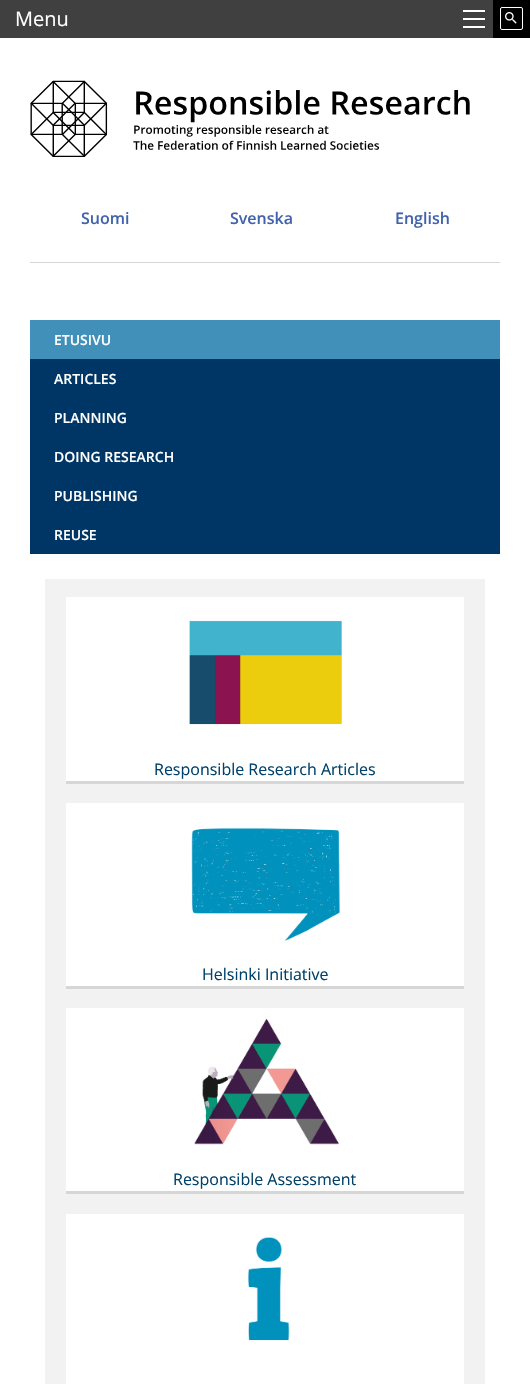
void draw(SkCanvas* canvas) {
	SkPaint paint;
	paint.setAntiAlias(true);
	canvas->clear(0xffffffff);
	paint.setColor(0xff000000);
	canvas->drawRect(SkRect::MakeXYWH(493, 0, 37, 38), paint);
	paint.setColor(0xff404040);
	canvas->drawRect(SkRect::MakeXYWH(0, 0, 493, 38), paint);
	SkFont f1(fontMgr->matchFamilyStyle("Open Sans", SkFontStyle::Normal()), 20);
	f1.setSubpixel(true);
	paint.setColor(0xffffffff);
	canvas->drawString("Menu", 15, 26, f1, paint);
	canvas->drawImageRect(SkImages::DeferredFromEncodedData(SkData::MakeFromFileName("img1.png")), SkRect::MakeXYWH(463, 10, 22, 18), SkSamplingOptions());
	paint.setStroke(true);
	paint.setStrokeWidth(1);
	canvas->drawRoundRect(SkRect::MakeXYWH(500.5, 7.5, 22, 22), 1.5, 1.5, paint);
	canvas->drawImageRect(SkImages::DeferredFromEncodedData(SkData::MakeFromFileName("img2.png")), SkRect::MakeXYWH(505, 12, 12, 12), SkSamplingOptions());
	canvas->drawImageRect(SkImages::DeferredFromEncodedData(SkData::MakeFromFileName("img3.png")), SkRect::MakeXYWH(30, 80, 440, 77), SkSamplingOptions());
	SkFont f2(fontMgr->matchFamilyStyle("Open Sans", SkFontStyle(600, SkFontStyle::kNormal_Width, SkFontStyle::kUpright_Slant)), 16);
	f2.setSubpixel(true);
	paint.setStroke(false);
	paint.setColor(0xff4163ad);
	canvas->drawString("Suomi", 81, 224, f2, paint);
	canvas->drawString("Svenska", 230, 224, f2, paint);
	canvas->drawString("English", 395, 224, f2, paint);
	paint.setColor(0xffd6d6d6);
	canvas->drawRect(SkRect::MakeXYWH(30, 262, 470, 1), paint);
	paint.setColor(0xff003666);
	canvas->drawRect(SkRect::MakeXYWH(30, 359, 470, 195), paint);
	paint.setColor(0xff4190ba);
	canvas->drawRect(SkRect::MakeXYWH(30, 320, 470, 39), paint);
	SkFont f3(fontMgr->matchFamilyStyle("Open Sans", SkFontStyle(600, SkFontStyle::kNormal_Width, SkFontStyle::kUpright_Slant)), 14);
	f3.setSubpixel(true);
	paint.setColor(0xffffffff);
	canvas->drawString("ETUSIVU", 54, 345, f3, paint);
	canvas->drawString("ARTICLES", 54, 384, f3, paint);
	canvas->drawString("PLANNING", 54, 423, f3, paint);
	canvas->drawString("DOING RESEARCH", 54, 462, f3, paint);
	canvas->drawString("PUBLISHING", 54, 501, f3, paint);
	canvas->drawString("REUSE", 54, 540, f3, paint);
	paint.setColor(0xfff2f2f2);
	canvas->drawRect(SkRect::MakeXYWH(45, 579, 440, 805), paint);
	paint.setColor(0xffffffff);
	canvas->drawRect(SkRect::MakeXYWH(66, 597, 398, 184), paint);
	paint.setColor(0xffd6d6d6);
	canvas->drawRect(SkRect::MakeXYWH(66, 781, 398, 3), paint);
	canvas->drawImageRect(SkImages::DeferredFromEncodedData(SkData::MakeFromFileName("img4.png")), SkRect::MakeXYWH(189, 620, 153, 105), SkSamplingOptions());
	SkFont f4(fontMgr->matchFamilyStyle("Open Sans", SkFontStyle::Normal()), 16);
	f4.setSubpixel(true);
	paint.setColor(0xff00426b);
	canvas->drawString("Responsible Research Articles", 154, 775, f4, paint);
	paint.setColor(0xffffffff);
	canvas->drawRect(SkRect::MakeXYWH(66, 803, 398, 183), paint);
	paint.setColor(0xffd6d6d6);
	canvas->drawRect(SkRect::MakeXYWH(66, 986, 398, 3), paint);
	canvas->drawImageRect(SkImages::DeferredFromEncodedData(SkData::MakeFromFileName("img5.png")), SkRect::MakeXYWH(191, 828, 149, 113), SkSamplingOptions());
	paint.setColor(0xff00426b);
	canvas->drawString("Helsinki Initiative", 202, 980, f4, paint);
	paint.setColor(0xffffffff);
	canvas->drawRect(SkRect::MakeXYWH(66, 1008, 398, 183), paint);
	paint.setColor(0xffd6d6d6);
	canvas->drawRect(SkRect::MakeXYWH(66, 1191, 398, 3), paint);
	canvas->drawImageRect(SkImages::DeferredFromEncodedData(SkData::MakeFromFileName("img6.png")), SkRect::MakeXYWH(194, 1019, 145, 126), SkSamplingOptions());
	paint.setColor(0xff00426b);
	canvas->drawString("Responsible Assessment", 173, 1185, f4, paint);
	paint.setColor(0xffffffff);
	canvas->drawRect(SkRect::MakeXYWH(66, 1214, 398, 170), paint);
	canvas->drawImageRect(SkImages::DeferredFromEncodedData(SkData::MakeFromFileName("img7.png")), SkRect::MakeXYWH(248, 1237, 42, 104), SkSamplingOptions());
}
